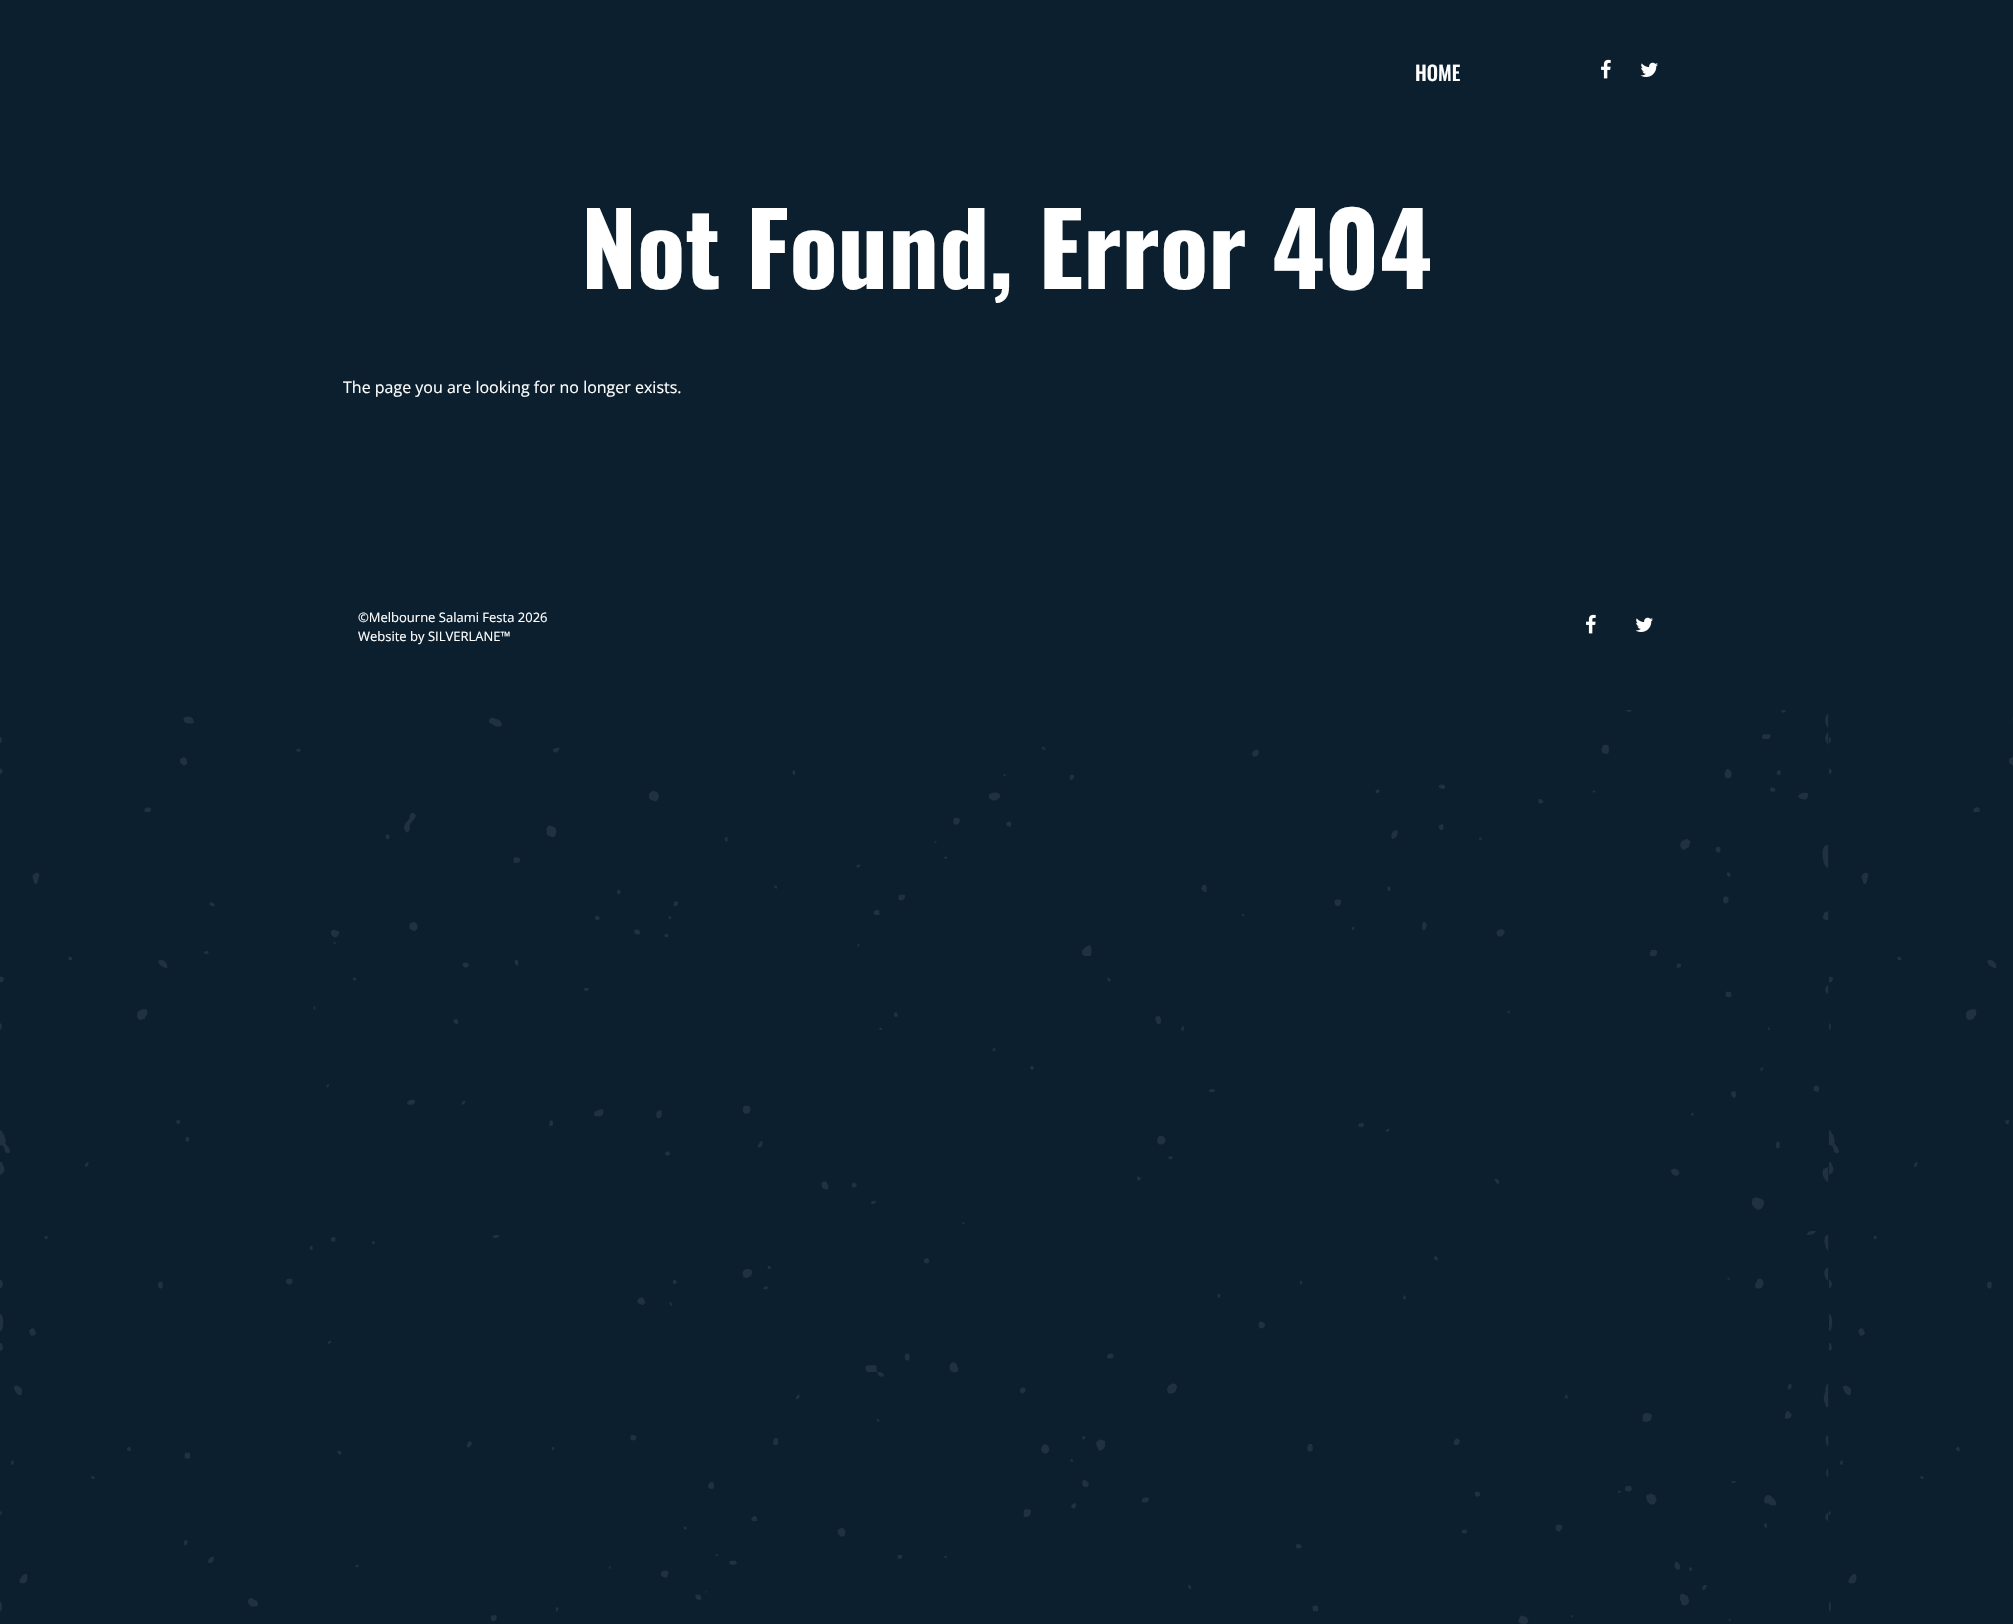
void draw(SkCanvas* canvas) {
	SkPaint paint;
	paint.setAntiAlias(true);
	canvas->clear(0xff0c1f2f);
	canvas->drawImageRect(SkImages::DeferredFromEncodedData(SkData::MakeFromFileName("img1.png")), SkRect::MakeXYWH(0, 710, 2013, 914), SkSamplingOptions());
	SkFont f1(fontMgr->matchFamilyStyle("Oswald", SkFontStyle(500, SkFontStyle::kNormal_Width, SkFontStyle::kUpright_Slant)), 20);
	f1.setSubpixel(true);
	paint.setColor(0xffffffff);
	canvas->drawString("HOME", 1415, 81, f1, paint);
	canvas->drawImageRect(SkImages::DeferredFromEncodedData(SkData::MakeFromFileName("img2.png")), SkRect::MakeXYWH(1601, 59, 10, 20), SkSamplingOptions());
	canvas->drawImageRect(SkImages::DeferredFromEncodedData(SkData::MakeFromFileName("img3.png")), SkRect::MakeXYWH(1640, 62, 18, 15), SkSamplingOptions());
	SkFont f2(fontMgr->matchFamilyStyle("Oswald", SkFontStyle::Bold()), 100);
	f2.setSubpixel(true);
	canvas->drawString("Not Found, Error 404", 581, 289, f2, paint);
	SkFont f3(fontMgr->matchFamilyStyle("Open Sans", SkFontStyle::Normal()), 16);
	f3.setSubpixel(true);
	canvas->drawString("The page you are looking for no longer exists.", 343, 393, f3, paint);
	SkFont f4(fontMgr->matchFamilyStyle("Open Sans", SkFontStyle::Normal()), 13);
	f4.setSubpixel(true);
	canvas->drawString("©Melbourne Salami Festa 2026", 358, 622, f4, paint);
	canvas->drawString("Website by SILVERLANE™", 358, 641, f4, paint);
	canvas->drawImageRect(SkImages::DeferredFromEncodedData(SkData::MakeFromFileName("img2.png")), SkRect::MakeXYWH(1586, 614, 10, 20), SkSamplingOptions());
	canvas->drawImageRect(SkImages::DeferredFromEncodedData(SkData::MakeFromFileName("img3.png")), SkRect::MakeXYWH(1635, 617, 18, 15), SkSamplingOptions());
}
